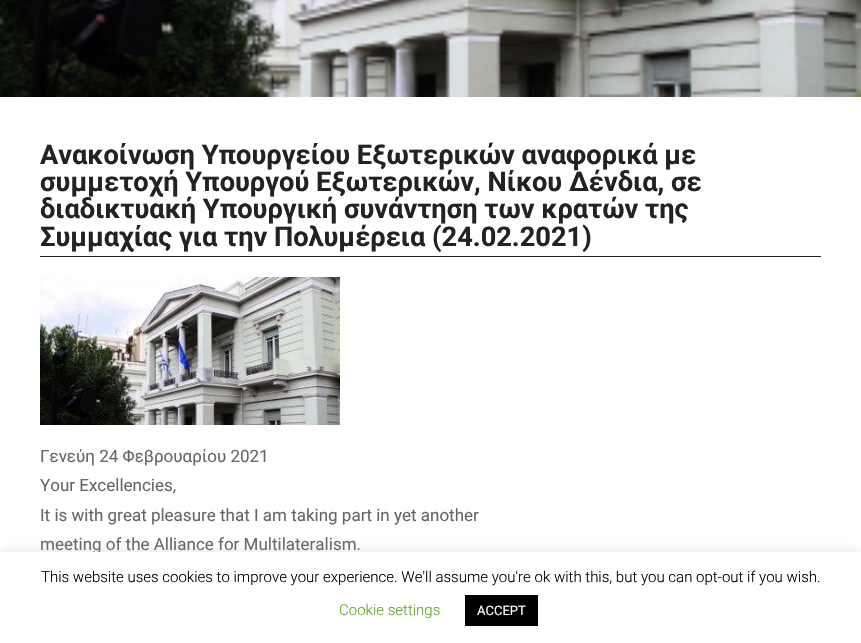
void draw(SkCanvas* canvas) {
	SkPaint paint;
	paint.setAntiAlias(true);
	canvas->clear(0xffffffff);
	canvas->drawImageRect(SkImages::DeferredFromEncodedData(SkData::MakeFromFileName("img1.png")), SkRect::MakeXYWH(0, 0, 861, 97), SkSamplingOptions());
	paint.setColor(0xff222222);
	canvas->drawRect(SkRect::MakeXYWH(40, 256, 781, 1), paint);
	SkFont f1(fontMgr->matchFamilyStyle("Roboto", SkFontStyle::Bold()), 27.2);
	f1.setSubpixel(true);
	canvas->drawString("Ανακοίνωση Υπουργείου Εξωτερικών αναφορικά με", 40, 164, f1, paint);
	canvas->drawString("συμμετοχή Υπουργού Εξωτερικών, Νίκου Δένδια, σε", 40, 191, f1, paint);
	canvas->drawString("διαδικτυακή Υπουργική συνάντηση των κρατών της", 40, 218, f1, paint);
	canvas->drawString("Συμμαχίας για την Πολυμέρεια (24.02.2021)", 40, 246, f1, paint);
	canvas->drawImageRect(SkImages::DeferredFromEncodedData(SkData::MakeFromFileName("img2.png")), SkRect::MakeXYWH(40, 277, 300, 148), SkSamplingOptions());
	SkFont f2(fontMgr->matchFamilyStyle("Roboto", SkFontStyle::Normal()), 17);
	f2.setSubpixel(true);
	paint.setColor(0xff666666);
	canvas->drawString("Γενεύη 24 Φεβρουαρίου 2021", 40, 462, f2, paint);
	canvas->drawString("Your Excellencies,", 40, 491, f2, paint);
	canvas->drawString("It is with great pleasure that I am taking part in yet another", 40, 521, f2, paint);
	canvas->drawString("meeting of the Alliance for Multilateralism.", 40, 550, f2, paint);
	paint.setColor(0x4dacabab);
	paint.setMaskFilter(SkMaskFilter::MakeBlur(kNormal_SkBlurStyle, 5));
	canvas->drawRect(SkRect::MakeXYWH(0, 551, 861, 91), paint);
	paint.setMaskFilter(nullptr);
	paint.setColor(0xffffffff);
	canvas->drawRect(SkRect::MakeXYWH(0, 552, 861, 91), paint);
	SkFont f3(fontMgr->matchFamilyStyle("Roboto", SkFontStyle(300, SkFontStyle::kNormal_Width, SkFontStyle::kUpright_Slant)), 15);
	f3.setSubpixel(true);
	paint.setColor(0xff000000);
	canvas->drawString("This website uses cookies to improve your experience. We'll assume you're ok with this, but you can opt-out if you wish.", 41, 582, f3, paint);
	paint.setColor(0xff62a329);
	canvas->drawString("Cookie settings", 339, 615, f3, paint);
	paint.setColor(0xff000000);
	canvas->drawRect(SkRect::MakeXYWH(465, 595, 73, 31), paint);
	SkFont f4(fontMgr->matchFamilyStyle("Roboto", SkFontStyle::Normal()), 13);
	f4.setSubpixel(true);
	paint.setColor(0xffffffff);
	canvas->drawString("ACCEPT", 477, 615, f4, paint);
}
